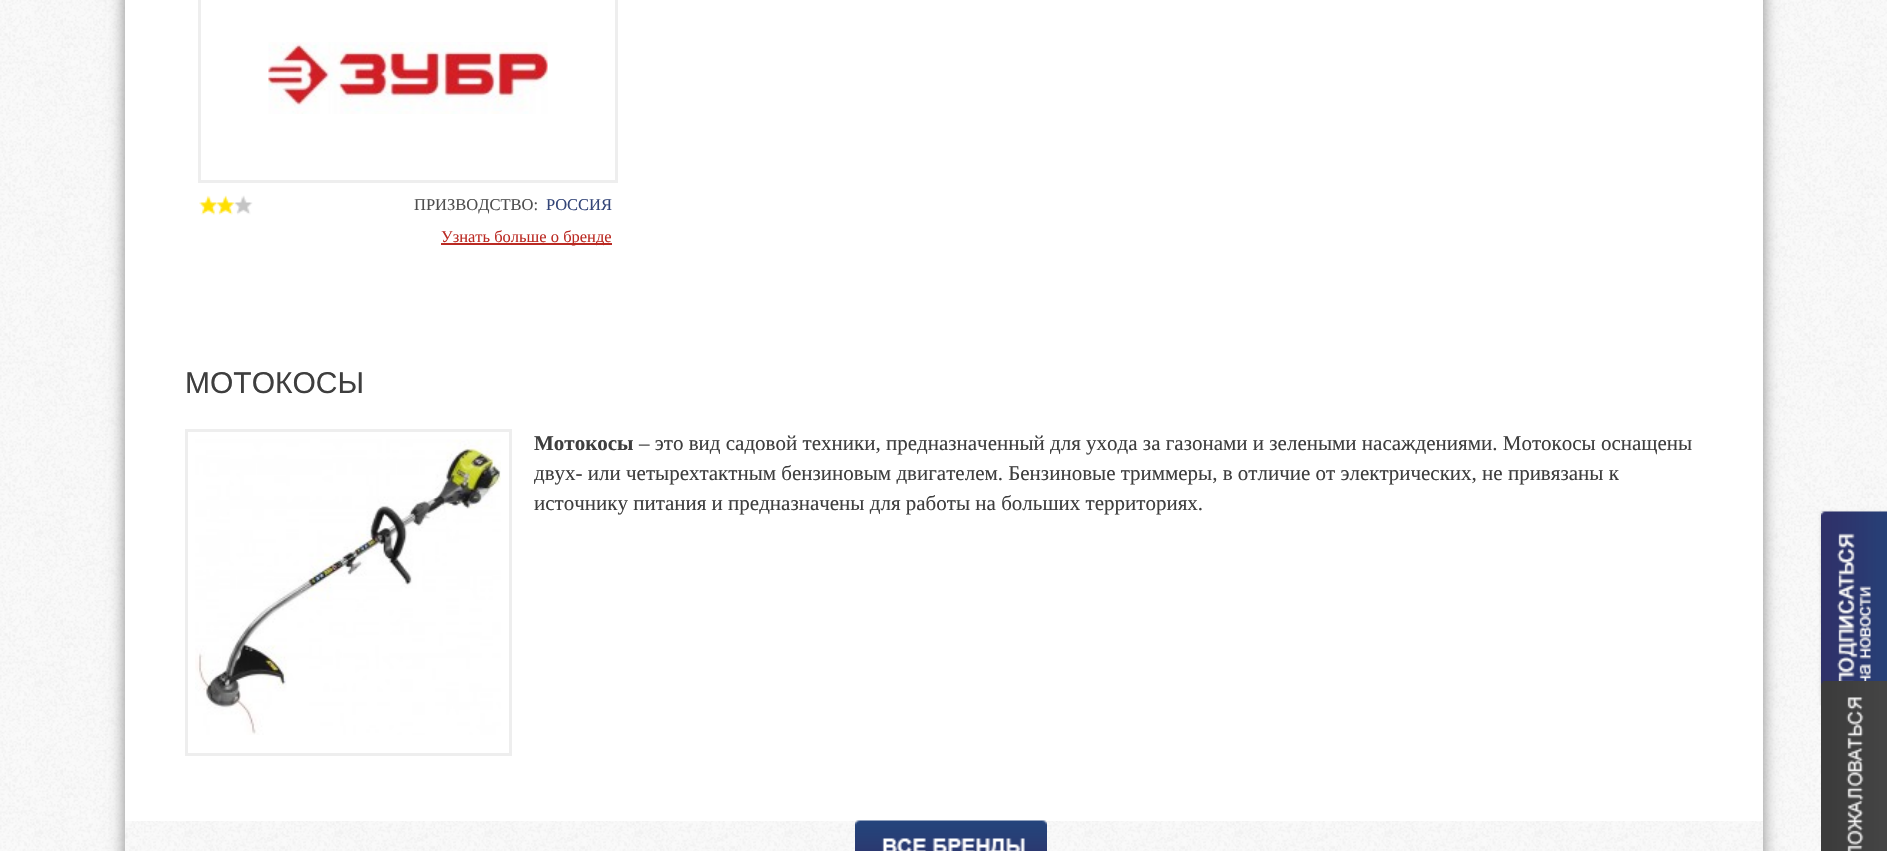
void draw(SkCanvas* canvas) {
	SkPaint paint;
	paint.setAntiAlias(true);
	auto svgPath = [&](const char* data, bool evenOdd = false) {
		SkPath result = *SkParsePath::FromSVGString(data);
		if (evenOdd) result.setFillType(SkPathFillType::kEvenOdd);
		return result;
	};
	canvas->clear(0xffffffff);
	canvas->drawImageRect(SkImages::DeferredFromEncodedData(SkData::MakeFromFileName("img1.png")), SkRect::MakeXYWH(0, 0, 1887, 851), SkSamplingOptions());
	canvas->save();
	canvas->clipPath(svgPath("M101 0H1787V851H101ZM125-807H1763V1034H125Z", true), true);
	paint.setColor(0xff888888);
	paint.setMaskFilter(SkMaskFilter::MakeBlur(kNormal_SkBlurStyle, 7.5));
	canvas->drawRect(SkRect::MakeXYWH(125, -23, 1638, 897), paint);
	paint.setMaskFilter(nullptr);
	canvas->restore();
	paint.setColor(0xffffffff);
	canvas->drawRect(SkRect::MakeXYWH(125, 0, 1638, 821), paint);
	paint.setStroke(true);
	paint.setStrokeWidth(3);
	paint.setColor(0xffeeeeee);
	canvas->drawRect(SkRect::MakeXYWH(199.5, -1.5, 417, 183), paint);
	canvas->drawImageRect(SkImages::DeferredFromEncodedData(SkData::MakeFromFileName("img2.png")), SkRect::MakeXYWH(268, 42, 280, 72), SkSamplingOptions());
	canvas->drawImageRect(SkImages::DeferredFromEncodedData(SkData::MakeFromFileName("img3.png")), SkRect::MakeXYWH(199, 195, 54, 20), SkSamplingOptions());
	SkFont f1(fontMgr->matchFamilyStyle("Liberation Serif", SkFontStyle::Normal()), 16.5);
	f1.setSubpixel(true);
	paint.setStroke(false);
	paint.setColor(0xff4e4e4e);
	canvas->drawString("ПРИЗВОДСТВО:", 414, 210, f1, paint);
	paint.setColor(0xff334578);
	canvas->drawString("РОССИЯ", 546, 210, f1, paint);
	paint.setColor(0xffbb2a23);
	canvas->drawRect(SkRect::MakeXYWH(441, 243, 171, 2), paint);
	canvas->drawString("Узнать больше о бренде", 441, 242, f1, paint);
	SkFont f2(fontMgr->matchFamilyStyle("Liberation Sans", SkFontStyle::Normal()), 30);
	f2.setSubpixel(true);
	paint.setColor(0xff3e3e3e);
	canvas->drawString("МОТОКОСЫ", 185, 393, f2, paint);
	paint.setStroke(true);
	paint.setColor(0xffeeeeee);
	canvas->drawRect(SkRect::MakeXYWH(186.5, 430.5, 324, 324), paint);
	canvas->drawImageRect(SkImages::DeferredFromEncodedData(SkData::MakeFromFileName("img4.png")), SkRect::MakeXYWH(195, 439, 306, 296), SkSamplingOptions());
	SkFont f3(fontMgr->matchFamilyStyle("Liberation Serif", SkFontStyle::Bold()), 21);
	f3.setSubpixel(true);
	paint.setStroke(false);
	paint.setColor(0xff3e3e3e);
	canvas->drawString("Мотокосы", 534, 450, f3, paint);
	SkFont f4(fontMgr->matchFamilyStyle("Liberation Serif", SkFontStyle::Normal()), 21);
	f4.setSubpixel(true);
	canvas->drawString("– это вид садовой техники, предназначенный для ухода за газонами и зелеными насаждениями. Мотокосы оснащены", 639, 450, f4, paint);
	canvas->drawString("двух- или четырехтактным бензиновым двигателем. Бензиновые триммеры, в отличие от электрических, не привязаны к", 534, 480, f4, paint);
	canvas->drawString("источнику питания и предназначены для работы на больших территориях.", 534, 510, f4, paint);
	paint.setColor(0x26000000);
	paint.setMaskFilter(SkMaskFilter::MakeBlur(kNormal_SkBlurStyle, 1.5));
	canvas->drawRect(SkRect::MakeXYWH(1821, 512, 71, 193), paint);
	paint.setMaskFilter(nullptr);
	paint.setColor(0xffffffff);
	canvas->drawRect(SkRect::MakeXYWH(1821, 512, 5, 5), paint);
	canvas->drawImageRect(SkImages::DeferredFromEncodedData(SkData::MakeFromFileName("img5.png")), SkRect::MakeXYWH(1821, 511, 66, 175), SkSamplingOptions());
	canvas->drawImageRect(SkImages::DeferredFromEncodedData(SkData::MakeFromFileName("img6.png")), SkRect::MakeXYWH(855, 820, 192, 31), SkSamplingOptions());
	canvas->drawImageRect(SkImages::DeferredFromEncodedData(SkData::MakeFromFileName("img7.png")), SkRect::MakeXYWH(1821, 681, 66, 170), SkSamplingOptions());
}
